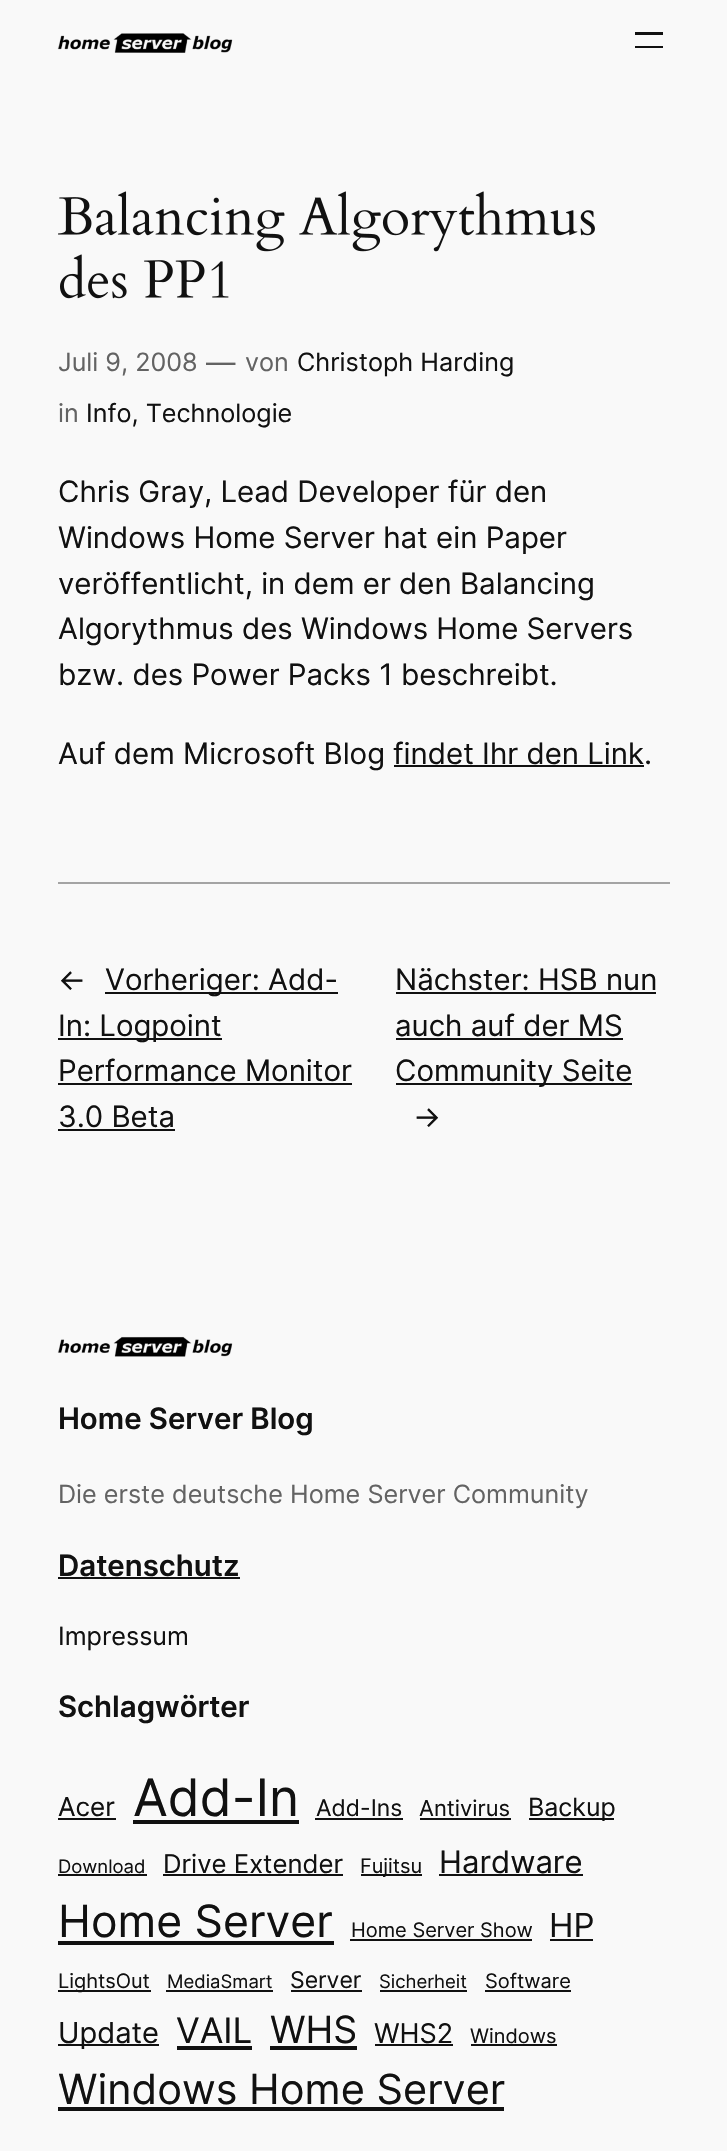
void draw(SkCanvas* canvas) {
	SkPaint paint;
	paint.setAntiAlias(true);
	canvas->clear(0xfff9f9f9);
	canvas->drawImageRect(SkImages::DeferredFromEncodedData(SkData::MakeFromFileName("img1.png")), SkRect::MakeXYWH(57, 33, 176, 20), SkSamplingOptions());
	paint.setColor(0xff111111);
	canvas->drawRect(SkRect::MakeXYWH(635, 32, 28, 3), paint);
	canvas->drawRect(SkRect::MakeXYWH(635, 46, 28, 2), paint);
	canvas->drawImageRect(SkImages::DeferredFromEncodedData(SkData::MakeFromFileName("img2.png")), SkRect::MakeXYWH(58, 191, 537, 61), SkSamplingOptions());
	canvas->drawImageRect(SkImages::DeferredFromEncodedData(SkData::MakeFromFileName("img3.png")), SkRect::MakeXYWH(60, 254, 169, 45), SkSamplingOptions());
	SkFont f1(fontMgr->matchFamilyStyle("Inter", SkFontStyle::Normal()), 25.2);
	f1.setSubpixel(true);
	paint.setColor(0xff636363);
	canvas->drawString("Juli 9, 2008", 58, 371, f1, paint);
	SkFont f2(fontMgr->matchFamilyStyle("Inter", SkFontStyle::Normal()), 29.4);
	f2.setSubpixel(true);
	canvas->drawString("—", 206, 373, f2, paint);
	canvas->drawString("von", 245, 371, f1, paint);
	paint.setColor(0xff111111);
	canvas->drawString("Christoph Harding", 297, 371, f1, paint);
	paint.setColor(0xff636363);
	canvas->drawString("in", 58, 422, f1, paint);
	paint.setColor(0xff111111);
	canvas->drawString("Info, Technologie", 86, 422, f1, paint);
	canvas->drawString("Chris Gray, Lead Developer für den", 58, 502, f2, paint);
	canvas->drawString("Windows Home Server hat ein Paper", 58, 548, f2, paint);
	canvas->drawString("veröffentlicht, in dem er den Balancing", 58, 594, f2, paint);
	canvas->drawString("Algorythmus des Windows Home Servers", 58, 639, f2, paint);
	canvas->drawString("bzw. des Power Packs 1 beschreibt.", 58, 685, f2, paint);
	canvas->drawString("Auf dem Microsoft Blog", 58, 764, f2, paint);
	canvas->drawString("findet Ihr den Link.", 393, 764, f2, paint);
	canvas->drawRect(SkRect::MakeXYWH(394, 765, 250, 2), paint);
	paint.setColor(0xffa4a4a4);
	canvas->drawRect(SkRect::MakeXYWH(58, 882, 612, 2), paint);
	paint.setColor(0xff111111);
	canvas->drawString("←", 58, 990, f2, paint);
	canvas->drawRect(SkRect::MakeXYWH(105, 992, 233, 2), paint);
	canvas->drawString("Vorheriger: Add-", 105, 990, f2, paint);
	canvas->drawRect(SkRect::MakeXYWH(58, 1038, 164, 2), paint);
	canvas->drawString("In: Logpoint", 58, 1036, f2, paint);
	canvas->drawString("Performance Monitor", 58, 1081, f2, paint);
	canvas->drawRect(SkRect::MakeXYWH(58, 1083, 294, 2), paint);
	canvas->drawString("3.0 Beta", 58, 1127, f2, paint);
	canvas->drawRect(SkRect::MakeXYWH(58, 1129, 117, 2), paint);
	canvas->drawString("Nächster: HSB nun", 395, 990, f2, paint);
	canvas->drawRect(SkRect::MakeXYWH(396, 992, 260, 2), paint);
	canvas->drawString("auch auf der MS", 395, 1036, f2, paint);
	canvas->drawRect(SkRect::MakeXYWH(396, 1038, 227, 2), paint);
	canvas->drawRect(SkRect::MakeXYWH(396, 1083, 236, 2), paint);
	canvas->drawString("Community Seite", 395, 1081, f2, paint);
	canvas->drawString("→", 413, 1127, f2, paint);
	canvas->drawImageRect(SkImages::DeferredFromEncodedData(SkData::MakeFromFileName("img4.png")), SkRect::MakeXYWH(57, 1336, 176, 21), SkSamplingOptions());
	SkFont f3(fontMgr->matchFamilyStyle("Inter", SkFontStyle(600, SkFontStyle::kNormal_Width, SkFontStyle::kUpright_Slant)), 29.4);
	f3.setSubpixel(true);
	canvas->drawString("Home Server Blog", 58, 1429, f3, paint);
	paint.setColor(0xff636363);
	canvas->drawString("Die erste deutsche Home Server Community", 58, 1503, f1, paint);
	paint.setColor(0xff111111);
	canvas->drawString("Datenschutz", 58, 1576, f3, paint);
	canvas->drawRect(SkRect::MakeXYWH(58, 1577, 182, 2), paint);
	canvas->drawString("Impressum", 58, 1645, f1, paint);
	canvas->drawString("Schlagwörter", 58, 1717, f3, paint);
	SkFont f4(fontMgr->matchFamilyStyle("Inter", SkFontStyle::Normal()), 26);
	f4.setSubpixel(true);
	canvas->drawString("Acer", 58, 1816, f4, paint);
	canvas->drawRect(SkRect::MakeXYWH(58, 1818, 58, 2), paint);
	SkFont f5(fontMgr->matchFamilyStyle("Inter", SkFontStyle::Normal()), 51.5);
	f5.setSubpixel(true);
	canvas->drawString("Add-In", 133, 1816, f5, paint);
	canvas->drawRect(SkRect::MakeXYWH(133, 1820, 166, 4), paint);
	SkFont f6(fontMgr->matchFamilyStyle("Inter", SkFontStyle::Normal()), 23);
	f6.setSubpixel(true);
	canvas->drawString("Add-Ins", 316, 1816, f6, paint);
	canvas->drawRect(SkRect::MakeXYWH(315, 1818, 88, 2), paint);
	SkFont f7(fontMgr->matchFamilyStyle("Inter", SkFontStyle::Normal()), 22);
	f7.setSubpixel(true);
	canvas->drawString("Antivirus", 419, 1816, f7, paint);
	canvas->drawRect(SkRect::MakeXYWH(420, 1818, 91, 2), paint);
	canvas->drawRect(SkRect::MakeXYWH(529, 1818, 85, 2), paint);
	SkFont f8(fontMgr->matchFamilyStyle("Inter", SkFontStyle::Normal()), 25);
	f8.setSubpixel(true);
	canvas->drawString("Backup", 528, 1816, f8, paint);
	SkFont f9(fontMgr->matchFamilyStyle("Inter", SkFontStyle::Normal()), 18.5);
	f9.setSubpixel(true);
	canvas->drawString("Download", 58, 1873, f9, paint);
	canvas->drawRect(SkRect::MakeXYWH(58, 1874, 89, 2), paint);
	SkFont f10(fontMgr->matchFamilyStyle("Inter", SkFontStyle::Normal()), 25.75);
	f10.setSubpixel(true);
	canvas->drawString("Drive Extender", 163, 1873, f10, paint);
	canvas->drawRect(SkRect::MakeXYWH(163, 1874, 180, 2), paint);
	canvas->drawRect(SkRect::MakeXYWH(361, 1874, 61, 2), paint);
	SkFont f11(fontMgr->matchFamilyStyle("Inter", SkFontStyle::Normal()), 20);
	f11.setSubpixel(true);
	canvas->drawString("Fujitsu", 360, 1873, f11, paint);
	SkFont f12(fontMgr->matchFamilyStyle("Inter", SkFontStyle::Normal()), 31);
	f12.setSubpixel(true);
	canvas->drawString("Hardware", 439, 1873, f12, paint);
	canvas->drawRect(SkRect::MakeXYWH(439, 1874, 144, 2), paint);
	SkFont f13(fontMgr->matchFamilyStyle("Inter", SkFontStyle::Normal()), 44.5);
	f13.setSubpixel(true);
	canvas->drawString("Home Server", 58, 1937, f13, paint);
	canvas->drawRect(SkRect::MakeXYWH(58, 1941, 276, 4), paint);
	canvas->drawString("Home Server Show", 351, 1937, f11, paint);
	canvas->drawRect(SkRect::MakeXYWH(350, 1939, 182, 2), paint);
	SkFont f14(fontMgr->matchFamilyStyle("Inter", SkFontStyle::Normal()), 33);
	f14.setSubpixel(true);
	canvas->drawString("HP", 549, 1937, f14, paint);
	canvas->drawRect(SkRect::MakeXYWH(550, 1939, 43, 2), paint);
	canvas->drawRect(SkRect::MakeXYWH(58, 1990, 93, 2), paint);
	canvas->drawString("LightsOut", 58, 1988, f11, paint);
	canvas->drawString("MediaSmart", 167, 1988, f9, paint);
	canvas->drawRect(SkRect::MakeXYWH(166, 1990, 107, 2), paint);
	canvas->drawString("Server", 290, 1988, f6, paint);
	canvas->drawRect(SkRect::MakeXYWH(291, 1990, 71, 2), paint);
	canvas->drawString("Sicherheit", 379, 1988, f9, paint);
	canvas->drawRect(SkRect::MakeXYWH(380, 1990, 87, 2), paint);
	canvas->drawString("Software", 485, 1988, f11, paint);
	canvas->drawRect(SkRect::MakeXYWH(485, 1990, 86, 2), paint);
	canvas->drawRect(SkRect::MakeXYWH(58, 2044, 101, 2), paint);
	SkFont f15(fontMgr->matchFamilyStyle("Inter", SkFontStyle::Normal()), 29);
	f15.setSubpixel(true);
	canvas->drawString("Update", 58, 2043, f15, paint);
	SkFont f16(fontMgr->matchFamilyStyle("Inter", SkFontStyle::Normal()), 35);
	f16.setSubpixel(true);
	canvas->drawString("VAIL", 176, 2043, f16, paint);
	canvas->drawRect(SkRect::MakeXYWH(177, 2046, 75, 4), paint);
	SkFont f17(fontMgr->matchFamilyStyle("Inter", SkFontStyle::Normal()), 37.5);
	f17.setSubpixel(true);
	canvas->drawString("WHS", 270, 2043, f17, paint);
	canvas->drawRect(SkRect::MakeXYWH(270, 2046, 87, 4), paint);
	SkFont f18(fontMgr->matchFamilyStyle("Inter", SkFontStyle::Normal()), 27);
	f18.setSubpixel(true);
	canvas->drawString("WHS2", 374, 2043, f18, paint);
	canvas->drawRect(SkRect::MakeXYWH(375, 2044, 78, 2), paint);
	canvas->drawString("Windows", 470, 2043, f11, paint);
	canvas->drawRect(SkRect::MakeXYWH(471, 2044, 86, 2), paint);
	SkFont f19(fontMgr->matchFamilyStyle("Inter", SkFontStyle::Normal()), 41.5);
	f19.setSubpixel(true);
	canvas->drawString("Windows Home Server", 58, 2104, f19, paint);
	canvas->drawRect(SkRect::MakeXYWH(58, 2107, 446, 4), paint);
}
